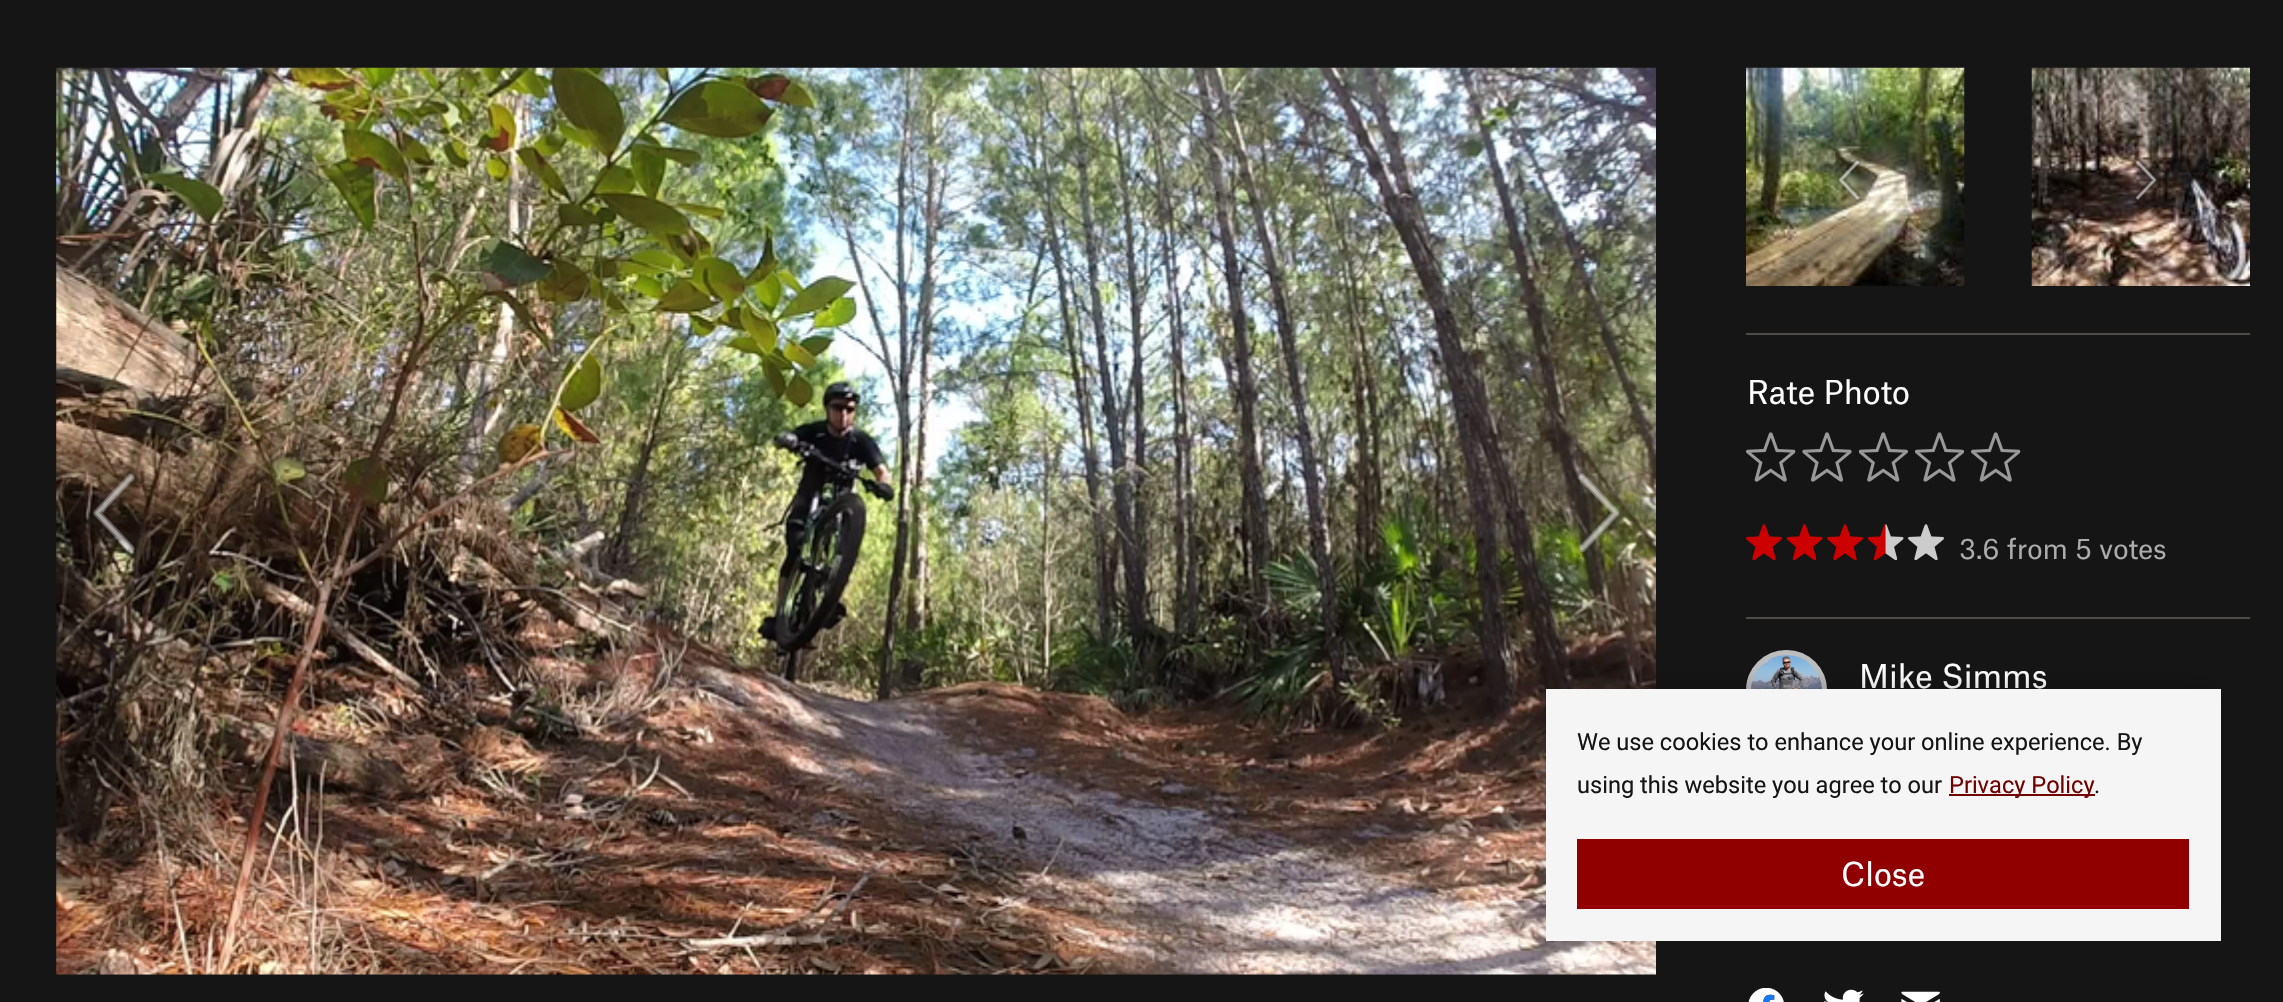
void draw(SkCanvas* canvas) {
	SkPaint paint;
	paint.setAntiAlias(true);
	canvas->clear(0xff151515);
	canvas->drawImageRect(SkImages::DeferredFromEncodedData(SkData::MakeFromFileName("img1.png")), SkRect::MakeXYWH(56, 67, 1600, 908), SkSamplingOptions());
	canvas->drawImageRect(SkImages::DeferredFromEncodedData(SkData::MakeFromFileName("img2.png")), SkRect::MakeXYWH(89, 469, 50, 88), SkSamplingOptions());
	canvas->drawImageRect(SkImages::DeferredFromEncodedData(SkData::MakeFromFileName("img3.png")), SkRect::MakeXYWH(1573, 469, 51, 88), SkSamplingOptions());
	canvas->drawImageRect(SkImages::DeferredFromEncodedData(SkData::MakeFromFileName("img4.png")), SkRect::MakeXYWH(1746, 67, 219, 219), SkSamplingOptions());
	canvas->drawImageRect(SkImages::DeferredFromEncodedData(SkData::MakeFromFileName("img5.png")), SkRect::MakeXYWH(1836, 158, 26, 44), SkSamplingOptions());
	canvas->drawImageRect(SkImages::DeferredFromEncodedData(SkData::MakeFromFileName("img6.png")), SkRect::MakeXYWH(2031, 67, 219, 219), SkSamplingOptions());
	canvas->drawImageRect(SkImages::DeferredFromEncodedData(SkData::MakeFromFileName("img7.png")), SkRect::MakeXYWH(2133, 158, 24, 42), SkSamplingOptions());
	paint.setColor(0xff4e4d49);
	canvas->drawRect(SkRect::MakeXYWH(1746, 333, 504, 2), paint);
	SkFont f1(fontMgr->matchFamilyStyle("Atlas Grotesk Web", SkFontStyle::Normal()), 31.5);
	f1.setSubpixel(true);
	paint.setColor(0xffffffff);
	canvas->drawString("Rate Photo", 1747, 404, f1, paint);
	canvas->drawImageRect(SkImages::DeferredFromEncodedData(SkData::MakeFromFileName("img8.png")), SkRect::MakeXYWH(1746, 432, 50, 50), SkSamplingOptions());
	canvas->drawImageRect(SkImages::DeferredFromEncodedData(SkData::MakeFromFileName("img9.png")), SkRect::MakeXYWH(1802, 432, 50, 50), SkSamplingOptions());
	canvas->drawImageRect(SkImages::DeferredFromEncodedData(SkData::MakeFromFileName("img10.png")), SkRect::MakeXYWH(1859, 432, 49, 50), SkSamplingOptions());
	canvas->drawImageRect(SkImages::DeferredFromEncodedData(SkData::MakeFromFileName("img11.png")), SkRect::MakeXYWH(1915, 432, 49, 50), SkSamplingOptions());
	canvas->drawImageRect(SkImages::DeferredFromEncodedData(SkData::MakeFromFileName("img12.png")), SkRect::MakeXYWH(1971, 432, 50, 50), SkSamplingOptions());
	canvas->drawImageRect(SkImages::DeferredFromEncodedData(SkData::MakeFromFileName("img13.png")), SkRect::MakeXYWH(1746, 524, 36, 36), SkSamplingOptions());
	canvas->drawImageRect(SkImages::DeferredFromEncodedData(SkData::MakeFromFileName("img14.png")), SkRect::MakeXYWH(1787, 524, 36, 36), SkSamplingOptions());
	canvas->drawImageRect(SkImages::DeferredFromEncodedData(SkData::MakeFromFileName("img13.png")), SkRect::MakeXYWH(1827, 524, 36, 36), SkSamplingOptions());
	canvas->drawImageRect(SkImages::DeferredFromEncodedData(SkData::MakeFromFileName("img15.png")), SkRect::MakeXYWH(1868, 524, 36, 36), SkSamplingOptions());
	canvas->drawImageRect(SkImages::DeferredFromEncodedData(SkData::MakeFromFileName("img16.png")), SkRect::MakeXYWH(1908, 524, 36, 36), SkSamplingOptions());
	SkFont f2(fontMgr->matchFamilyStyle("Atlas Grotesk Web", SkFontStyle::Normal()), 27);
	f2.setSubpixel(true);
	paint.setColor(0xffacacac);
	canvas->drawString("3.6 from 5 votes", 1959, 559, f2, paint);
	paint.setColor(0xff4e4d49);
	canvas->drawRect(SkRect::MakeXYWH(1746, 617, 504, 2), paint);
	canvas->drawImageRect(SkImages::DeferredFromEncodedData(SkData::MakeFromFileName("img17.png")), SkRect::MakeXYWH(1746, 650, 81, 39), SkSamplingOptions());
	paint.setStroke(true);
	paint.setStrokeWidth(5);
	paint.setColor(0xffbdbdbd);
	canvas->drawCircle(1786.5, 690.5, 38, paint);
	paint.setStroke(false);
	paint.setColor(0xffffffff);
	canvas->drawString("Mike Simms", 1859, 688, f1, paint);
	canvas->drawImageRect(SkImages::DeferredFromEncodedData(SkData::MakeFromFileName("img18.png")), SkRect::MakeXYWH(1748, 988, 36, 14), SkSamplingOptions());
	canvas->drawImageRect(SkImages::DeferredFromEncodedData(SkData::MakeFromFileName("img19.png")), SkRect::MakeXYWH(1824, 989, 40, 13), SkSamplingOptions());
	canvas->drawImageRect(SkImages::DeferredFromEncodedData(SkData::MakeFromFileName("img20.png")), SkRect::MakeXYWH(1901, 991, 39, 11), SkSamplingOptions());
	paint.setColor(0x40000000);
	paint.setMaskFilter(SkMaskFilter::MakeBlur(kNormal_SkBlurStyle, 11));
	canvas->drawRect(SkRect::MakeXYWH(1557, 689, 653, 229), paint);
	paint.setMaskFilter(nullptr);
	paint.setColor(0xfff5f5f5);
	canvas->drawRect(SkRect::MakeXYWH(1546, 689, 675, 252), paint);
	SkFont f3(fontMgr->matchFamilyStyle("Roboto", SkFontStyle::Normal()), 23.6);
	f3.setSubpixel(true);
	paint.setColor(0xff151515);
	canvas->drawString("We use cookies to enhance your online experience. By", 1577, 750, f3, paint);
	canvas->drawString("using this website you agree to our", 1577, 793, f3, paint);
	paint.setColor(0xff710100);
	canvas->drawRect(SkRect::MakeXYWH(1949, 794, 146, 2), paint);
	canvas->drawString("Privacy Policy", 1949, 793, f3, paint);
	paint.setColor(0xff151515);
	canvas->drawString(".", 2094, 793, f3, paint);
	paint.setColor(0xff900000);
	canvas->drawRect(SkRect::MakeXYWH(1577, 839, 612, 70), paint);
	paint.setColor(0xffffffff);
	canvas->drawString("Close", 1841, 886, f1, paint);
}
